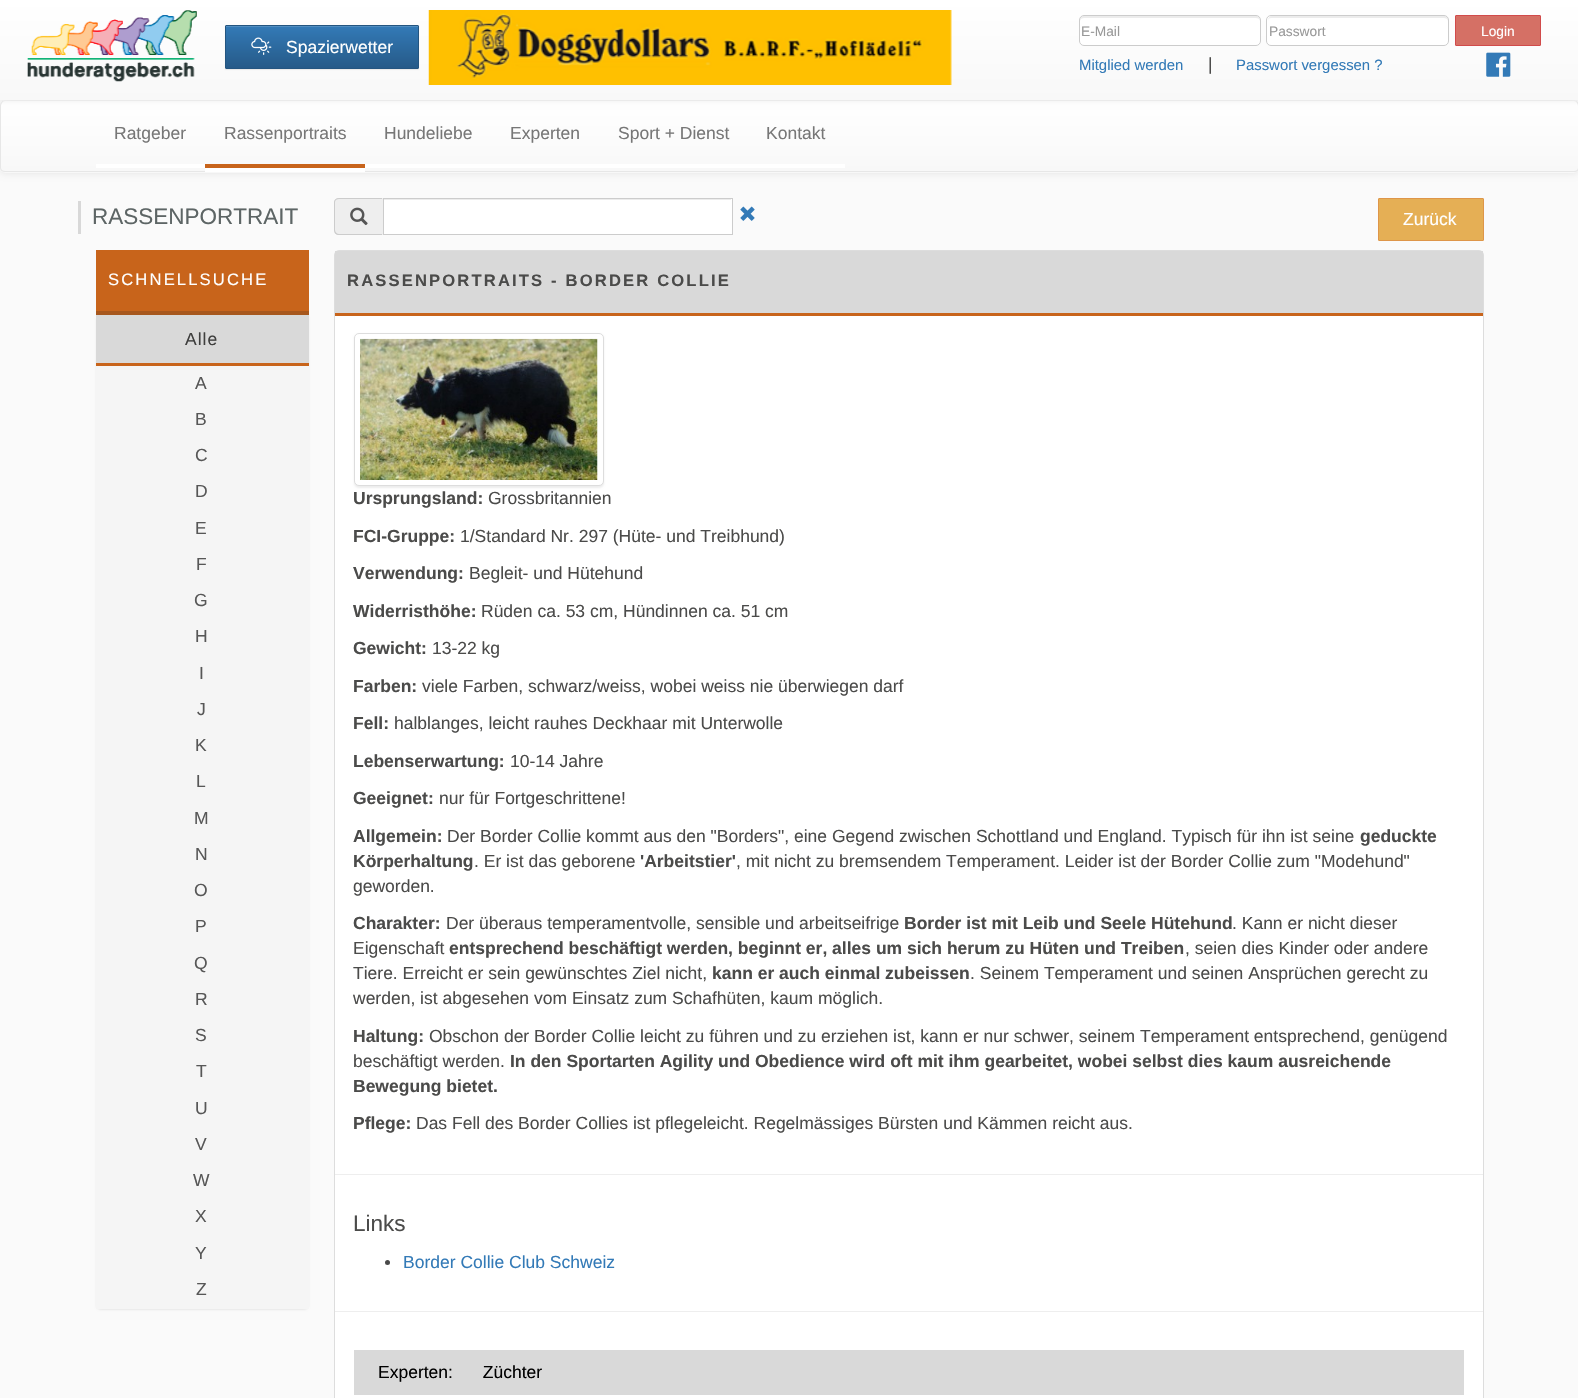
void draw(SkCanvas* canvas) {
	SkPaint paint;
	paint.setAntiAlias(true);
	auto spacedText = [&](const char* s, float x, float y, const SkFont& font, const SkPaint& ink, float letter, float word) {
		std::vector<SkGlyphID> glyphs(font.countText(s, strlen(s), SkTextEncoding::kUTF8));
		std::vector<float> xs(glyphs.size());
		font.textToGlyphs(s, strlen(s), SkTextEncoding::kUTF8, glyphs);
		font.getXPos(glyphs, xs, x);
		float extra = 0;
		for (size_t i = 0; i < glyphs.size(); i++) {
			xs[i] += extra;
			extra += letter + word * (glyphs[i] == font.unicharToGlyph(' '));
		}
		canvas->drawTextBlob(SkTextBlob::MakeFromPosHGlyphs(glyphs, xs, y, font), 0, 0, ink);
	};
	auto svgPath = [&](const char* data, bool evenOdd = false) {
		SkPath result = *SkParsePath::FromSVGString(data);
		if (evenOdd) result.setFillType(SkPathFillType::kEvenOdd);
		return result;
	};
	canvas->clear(0xfffafafa);
	paint.setColor(0x12000000);
	paint.setMaskFilter(SkMaskFilter::MakeBlur(kNormal_SkBlurStyle, 3));
	canvas->drawRoundRect(SkRect::MakeXYWH(0, 103, 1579, 71), 5, 5, paint);
	paint.setMaskFilter(nullptr);
	paint.setColor(0xfff8f8f8);
	canvas->drawRoundRect(SkRect::MakeXYWH(0, 101, 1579, 72), 5, 5, paint);
	canvas->save();
	canvas->clipPath(svgPath("M5 101H1574C1577 101 1579 103 1579 106V168C1579 171 1577 173 1574 173H5C2 173 0 171 0 168V106C0 103 2 101 5 101Z"), true);
	{
		const SkColor colors[] = {0xffffffff, 0xfff8f8f8};
		const float stops[] = {0, 1};
		const SkPoint ends[] = {{789, 101}, {789, 171}};
		paint.setShader(SkGradientShader::MakeLinear(ends, colors, stops, 2, SkTileMode::kClamp));
		paint.setAlpha(255);
	}
	canvas->drawPath(svgPath("M5 101H1574C1577 101 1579 103 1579 106V171H0V106C0 103 2 101 5 101Z"), paint);
	canvas->restore();
	paint.setShader(nullptr);
	paint.setColor(0xffe7e7e7);
	canvas->drawPath(svgPath("M5 101H1574C1577 101 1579 103 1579 106V168C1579 170 1577 172 1574 172H5C2 172 0 170 0 168V106C0 103 2 101 5 101ZM5 101H1574C1576 101 1578 103 1578 106V168C1578 170 1576 171 1574 171H5C3 171 1 170 1 168V106C1 103 3 101 5 101Z", true), paint);
	paint.setColor(0x12000000);
	paint.setMaskFilter(SkMaskFilter::MakeBlur(kNormal_SkBlurStyle, 3));
	canvas->drawRect(SkRect::MakeXYWH(0, 1, 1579, 100), paint);
	paint.setMaskFilter(nullptr);
	{
		const SkColor colors[] = {0xffffffff, 0xfff8f8f8};
		const float stops[] = {0, 1};
		const SkPoint ends[] = {{789, 0}, {789, 100}};
		paint.setShader(SkGradientShader::MakeLinear(ends, colors, stops, 2, SkTileMode::kClamp));
		paint.setAlpha(255);
	}
	canvas->drawRect(SkRect::MakeXYWH(0, 0, 1578, 100), paint);
	canvas->drawImageRect(SkImages::DeferredFromEncodedData(SkData::MakeFromFileName("img1.png")), SkRect::MakeXYWH(27, 10, 170, 72), SkSamplingOptions());
	paint.setShader(nullptr);
	paint.setColor(0x12000000);
	paint.setMaskFilter(SkMaskFilter::MakeBlur(kNormal_SkBlurStyle, 0.5));
	canvas->drawRoundRect(SkRect::MakeXYWH(225, 26, 194, 44), 1, 1, paint);
	paint.setMaskFilter(nullptr);
	{
		const SkColor colors[] = {0xff337ab7, 0xff265a88};
		const float stops[] = {0, 1};
		const SkPoint ends[] = {{322, 26}, {322, 68}};
		paint.setShader(SkGradientShader::MakeLinear(ends, colors, stops, 2, SkTileMode::kClamp));
		paint.setAlpha(255);
	}
	canvas->drawRect(SkRect::MakeXYWH(226, 27, 192, 41), paint);
	paint.setShader(nullptr);
	paint.setColor(0xff528ec1);
	canvas->drawRect(SkRect::MakeXYWH(226, 26, 192, 1), paint);
	paint.setStroke(true);
	paint.setStrokeWidth(1);
	paint.setColor(0xff245580);
	canvas->drawRoundRect(SkRect::MakeXYWH(225.5, 25.5, 193, 43), 0.5, 0.5, paint);
	canvas->drawImageRect(SkImages::DeferredFromEncodedData(SkData::MakeFromFileName("img2.png")), SkRect::MakeXYWH(251, 37, 21, 18), SkSamplingOptions());
	SkFont f1(fontMgr->matchFamilyStyle("Liberation Sans", SkFontStyle::Normal()), 17.5);
	f1.setSubpixel(true);
	paint.setStroke(false);
	paint.setColor(0xffffffff);
	canvas->drawString("Spazierwetter", 286, 53, f1, paint);
	canvas->drawImageRect(SkImages::DeferredFromEncodedData(SkData::MakeFromFileName("img3.png")), SkRect::MakeXYWH(428, 10, 524, 75), SkSamplingOptions());
	canvas->drawRoundRect(SkRect::MakeXYWH(1079, 15, 182, 31), 5, 5, paint);
	paint.setColor(0xffececec);
	canvas->drawPath(svgPath("M1084 18H1256C1258 18 1260 19 1260 21V20C1260 18 1258 16 1256 16H1084C1082 16 1080 18 1080 20V21C1080 19 1082 18 1084 18Z"), paint);
	paint.setStroke(true);
	paint.setColor(0xffcccccc);
	canvas->drawRoundRect(SkRect::MakeXYWH(1079.5, 15.5, 181, 30), 4.5, 4.5, paint);
	SkFont f2(fontMgr->matchFamilyStyle("Liberation Sans", SkFontStyle::Normal()), 13.75);
	f2.setSubpixel(true);
	paint.setStroke(false);
	paint.setColor(0xff999999);
	canvas->drawString("E-Mail", 1081, 36, f2, paint);
	paint.setColor(0xffffffff);
	canvas->drawRoundRect(SkRect::MakeXYWH(1266, 15, 183, 31), 5, 5, paint);
	paint.setColor(0xffececec);
	canvas->drawPath(svgPath("M1271 18H1444C1446 18 1448 19 1448 21V20C1448 18 1446 16 1444 16H1272C1270 16 1268 18 1268 20V21C1268 19 1269 18 1271 18Z"), paint);
	paint.setStroke(true);
	paint.setColor(0xffcccccc);
	canvas->drawRoundRect(SkRect::MakeXYWH(1266.5, 15.5, 182, 30), 4.5, 4.5, paint);
	paint.setStroke(false);
	paint.setColor(0xff999999);
	canvas->drawString("Passwort", 1269, 36, f2, paint);
	SkFont f3(fontMgr->matchFamilyStyle("Liberation Sans", SkFontStyle::Normal()), 14.9);
	f3.setSubpixel(true);
	paint.setColor(0xff337ab7);
	canvas->drawString("Mitglied werden", 1079, 70, f3, paint);
	paint.setColor(0xff4b4b4a);
	canvas->drawString("|", 1208, 70, f1, paint);
	paint.setColor(0xff337ab7);
	canvas->drawString("Passwort vergessen ?", 1236, 70, f3, paint);
	paint.setColor(0xffd57065);
	canvas->drawRoundRect(SkRect::MakeXYWH(1455.5, 15.5, 85, 30), 0.5, 0.5, paint);
	paint.setStroke(true);
	paint.setColor(0xffd14b4b);
	canvas->drawRoundRect(SkRect::MakeXYWH(1455.5, 15.5, 85, 30), 0.5, 0.5, paint);
	paint.setStroke(false);
	paint.setColor(0xffffffff);
	canvas->drawString("Login", 1481, 36, f2, paint);
	canvas->drawImageRect(SkImages::DeferredFromEncodedData(SkData::MakeFromFileName("img4.png")), SkRect::MakeXYWH(1486, 52, 25, 25), SkSamplingOptions());
	canvas->drawRect(SkRect::MakeXYWH(96, 164, 109, 4), paint);
	paint.setColor(0xff777777);
	canvas->drawString("Ratgeber", 114, 139, f1, paint);
	paint.setColor(0xffffffff);
	canvas->drawRect(SkRect::MakeXYWH(205, 168, 160, 4), paint);
	paint.setColor(0xffc8641b);
	canvas->drawRect(SkRect::MakeXYWH(205, 164, 160, 4), paint);
	paint.setColor(0xff777777);
	canvas->drawString("Rassenportraits", 224, 139, f1, paint);
	paint.setColor(0xffffffff);
	canvas->drawRect(SkRect::MakeXYWH(365, 164, 480, 4), paint);
	paint.setColor(0xff777777);
	canvas->drawString("Hundeliebe", 384, 139, f1, paint);
	canvas->drawString("Experten", 510, 139, f1, paint);
	canvas->drawString("Sport + Dienst", 618, 139, f1, paint);
	canvas->drawString("Kontakt", 766, 139, f1, paint);
	paint.setColor(0xffd8d8d8);
	canvas->drawRect(SkRect::MakeXYWH(78, 201, 3, 33), paint);
	SkFont f4(fontMgr->matchFamilyStyle("Liberation Sans", SkFontStyle::Normal()), 22.5);
	f4.setSubpixel(true);
	paint.setColor(0xff5d6565);
	canvas->drawString("RASSENPORTRAIT", 92, 224, f4, paint);
	paint.setColor(0xffeeeeee);
	canvas->drawPath(svgPath("M339 198H383V235H339C336 235 334 233 334 230V203C334 200 336 198 339 198Z"), paint);
	paint.setColor(0xffcccccc);
	canvas->drawPath(svgPath("M339 198H382V235H339C336 235 334 233 334 230V202C334 200 336 198 339 198ZM339 199H382V234H339C337 234 335 232 335 230V202C335 200 337 199 339 199Z", true), paint);
	canvas->drawImageRect(SkImages::DeferredFromEncodedData(SkData::MakeFromFileName("img5.png")), SkRect::MakeXYWH(350, 207, 18, 19), SkSamplingOptions());
	paint.setColor(0xffffffff);
	canvas->drawRect(SkRect::MakeXYWH(384, 199, 348, 35), paint);
	paint.setColor(0xffececec);
	canvas->drawRect(SkRect::MakeXYWH(384, 199, 347, 1), paint);
	paint.setStroke(true);
	paint.setColor(0xffcccccc);
	canvas->drawRect(SkRect::MakeXYWH(383.5, 198.5, 349, 36), paint);
	canvas->drawImageRect(SkImages::DeferredFromEncodedData(SkData::MakeFromFileName("img6.png")), SkRect::MakeXYWH(740, 206, 15, 15), SkSamplingOptions());
	paint.setStroke(false);
	paint.setColor(0xffe5af55);
	canvas->drawRoundRect(SkRect::MakeXYWH(1378.5, 198.5, 105, 42), 0.5, 0.5, paint);
	paint.setStroke(true);
	paint.setColor(0xffde9649);
	canvas->drawRoundRect(SkRect::MakeXYWH(1378.5, 198.5, 105, 42), 0.5, 0.5, paint);
	paint.setStroke(false);
	paint.setColor(0xffffffff);
	canvas->drawString("Zurück", 1403, 225, f1, paint);
	paint.setColor(0xffc8641b);
	canvas->drawRect(SkRect::MakeXYWH(96, 250, 213, 61), paint);
	paint.setColor(0xffa7571d);
	canvas->drawRect(SkRect::MakeXYWH(96, 311, 213, 4), paint);
	SkFont f5(fontMgr->matchFamilyStyle("Liberation Sans", SkFontStyle::Normal()), 16.6);
	f5.setSubpixel(true);
	paint.setColor(0xffffffff);
	spacedText("SCHNELLSUCHE", 108, 285, f5, paint, 2.15, 0);
	paint.setColor(0x12000000);
	paint.setMaskFilter(SkMaskFilter::MakeBlur(kNormal_SkBlurStyle, 1));
	canvas->drawRoundRect(SkRect::MakeXYWH(96, 316, 213, 994), 5, 5, paint);
	paint.setMaskFilter(nullptr);
	paint.setColor(0xffd9d9d9);
	canvas->drawRect(SkRect::MakeXYWH(96, 315, 213, 48), paint);
	paint.setColor(0xffc8641b);
	canvas->drawRect(SkRect::MakeXYWH(96, 363, 213, 3), paint);
	paint.setColor(0xff3f3f3e);
	spacedText("Alle", 185, 345, f1, paint, 1, 0);
	paint.setColor(0xfff5f5f5);
	canvas->drawRect(SkRect::MakeXYWH(96, 366, 213, 943), paint);
	paint.setColor(0xff575757);
	spacedText("A", 195, 389, f1, paint, 1, 0);
	spacedText("B", 195, 425, f1, paint, 1, 0);
	spacedText("C", 195, 461, f1, paint, 1, 0);
	spacedText("D", 195, 497, f1, paint, 1, 0);
	spacedText("E", 195, 534, f1, paint, 1, 0);
	spacedText("F", 196, 570, f1, paint, 1, 0);
	spacedText("G", 194, 606, f1, paint, 1, 0);
	spacedText("H", 195, 642, f1, paint, 1, 0);
	spacedText("I", 199, 679, f1, paint, 1, 0);
	spacedText("J", 197, 715, f1, paint, 1, 0);
	spacedText("K", 195, 751, f1, paint, 1, 0);
	spacedText("L", 196, 787, f1, paint, 1, 0);
	spacedText("M", 194, 824, f1, paint, 1, 0);
	spacedText("N", 195, 860, f1, paint, 1, 0);
	spacedText("O", 194, 896, f1, paint, 1, 0);
	spacedText("P", 195, 932, f1, paint, 1, 0);
	spacedText("Q", 194, 969, f1, paint, 1, 0);
	spacedText("R", 195, 1005, f1, paint, 1, 0);
	spacedText("S", 195, 1041, f1, paint, 1, 0);
	spacedText("T", 196, 1077, f1, paint, 1, 0);
	spacedText("U", 195, 1114, f1, paint, 1, 0);
	spacedText("V", 195, 1150, f1, paint, 1, 0);
	spacedText("W", 193, 1186, f1, paint, 1, 0);
	spacedText("X", 195, 1222, f1, paint, 1, 0);
	spacedText("Y", 195, 1259, f1, paint, 1, 0);
	spacedText("Z", 196, 1295, f1, paint, 1, 0);
	paint.setColor(0xffffffff);
	canvas->drawRoundRect(SkRect::MakeXYWH(334.5, 250.5, 1149, 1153), 4.5, 4.5, paint);
	paint.setStroke(true);
	paint.setColor(0xffdddddd);
	canvas->drawRoundRect(SkRect::MakeXYWH(334.5, 250.5, 1149, 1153), 4.5, 4.5, paint);
	paint.setStroke(false);
	paint.setColor(0xffd9d9d9);
	canvas->drawRect(SkRect::MakeXYWH(335, 251, 1148, 62), paint);
	paint.setColor(0xffc8641b);
	canvas->drawRect(SkRect::MakeXYWH(335, 313, 1148, 3), paint);
	SkFont f6(fontMgr->matchFamilyStyle("Liberation Sans", SkFontStyle::Bold()), 16.6);
	f6.setSubpixel(true);
	paint.setColor(0xff4b4b4a);
	spacedText("RASSENPORTRAITS - BORDER COLLIE", 347, 286, f6, paint, 2.15, 0);
	paint.setColor(0x12000000);
	paint.setMaskFilter(SkMaskFilter::MakeBlur(kNormal_SkBlurStyle, 1));
	canvas->drawRoundRect(SkRect::MakeXYWH(354, 334, 250, 154), 5, 5, paint);
	paint.setMaskFilter(nullptr);
	paint.setColor(0xffffffff);
	canvas->drawRoundRect(SkRect::MakeXYWH(354.5, 333.5, 249, 152), 4.5, 4.5, paint);
	paint.setStroke(true);
	paint.setColor(0xffdddddd);
	canvas->drawRoundRect(SkRect::MakeXYWH(354.5, 333.5, 249, 152), 4.5, 4.5, paint);
	canvas->drawImageRect(SkImages::DeferredFromEncodedData(SkData::MakeFromFileName("img7.png")), SkRect::MakeXYWH(360, 338, 238, 142), SkSamplingOptions());
	SkFont f7(fontMgr->matchFamilyStyle("Liberation Sans", SkFontStyle::Bold()), 17.5);
	f7.setSubpixel(true);
	paint.setStroke(false);
	paint.setColor(0xff4b4b4a);
	canvas->drawString("Ursprungsland:", 353, 504, f7, paint);
	canvas->drawString("Grossbritannien", 488, 504, f1, paint);
	canvas->drawString("FCI-Gruppe:", 353, 542, f7, paint);
	canvas->drawString("1/Standard Nr. 297 (Hüte- und Treibhund)", 460, 542, f1, paint);
	canvas->drawString("Verwendung:", 353, 579, f7, paint);
	canvas->drawString("Begleit- und Hütehund", 469, 579, f1, paint);
	canvas->drawString("Widerristhöhe:", 353, 617, f7, paint);
	canvas->drawString("Rüden ca. 53 cm, Hündinnen ca. 51 cm", 481, 617, f1, paint);
	canvas->drawString("Gewicht:", 353, 654, f7, paint);
	canvas->drawString("13-22 kg", 432, 654, f1, paint);
	canvas->drawString("Farben:", 353, 692, f7, paint);
	canvas->drawString("viele Farben, schwarz/weiss, wobei weiss nie überwiegen darf", 422, 692, f1, paint);
	canvas->drawString("Fell:", 353, 729, f7, paint);
	canvas->drawString("halblanges, leicht rauhes Deckhaar mit Unterwolle", 394, 729, f1, paint);
	canvas->drawString("Lebenserwartung:", 353, 767, f7, paint);
	canvas->drawString("10-14 Jahre", 510, 767, f1, paint);
	canvas->drawString("Geeignet:", 353, 804, f7, paint);
	canvas->drawString("nur für Fortgeschrittene!", 439, 804, f1, paint);
	canvas->drawString("Allgemein:", 353, 842, f7, paint);
	canvas->drawString("Der Border Collie kommt aus den \"Borders\", eine Gegend zwischen Schottland und England. Typisch für ihn ist seine", 447, 842, f1, paint);
	canvas->drawString("geduckte", 1360, 842, f7, paint);
	canvas->drawString("Körperhaltung", 353, 867, f7, paint);
	canvas->drawString(". Er ist das geborene", 474, 867, f1, paint);
	canvas->drawString("'Arbeitstier'", 640, 867, f7, paint);
	canvas->drawString(", mit nicht zu bremsendem Temperament. Leider ist der Border Collie zum \"Modehund\"", 736, 867, f1, paint);
	canvas->drawString("geworden.", 353, 892, f1, paint);
	canvas->drawString("Charakter:", 353, 929, f7, paint);
	canvas->drawString("Der überaus temperamentvolle, sensible und arbeitseifrige", 446, 929, f1, paint);
	canvas->drawString("Border ist mit Leib und Seele Hütehund", 904, 929, f7, paint);
	canvas->drawString(". Kann er nicht dieser", 1232, 929, f1, paint);
	canvas->drawString("Eigenschaft", 353, 954, f1, paint);
	canvas->drawString("entsprechend beschäftigt werden, beginnt er, alles um sich herum zu Hüten und Treiben", 449, 954, f7, paint);
	canvas->drawString(", seien dies Kinder oder andere", 1185, 954, f1, paint);
	canvas->drawString("Tiere. Erreicht er sein gewünschtes Ziel nicht,", 353, 979, f1, paint);
	canvas->drawString("kann er auch einmal zubeissen", 712, 979, f7, paint);
	canvas->drawString(". Seinem Temperament und seinen Ansprüchen gerecht zu", 970, 979, f1, paint);
	canvas->drawString("werden, ist abgesehen vom Einsatz zum Schafhüten, kaum möglich.", 353, 1004, f1, paint);
	canvas->drawString("Haltung:", 353, 1042, f7, paint);
	canvas->drawString("Obschon der Border Collie leicht zu führen und zu erziehen ist, kann er nur schwer, seinem Temperament entsprechend, genügend", 429, 1042, f1, paint);
	canvas->drawString("beschäftigt werden.", 353, 1067, f1, paint);
	canvas->drawString("In den Sportarten Agility und Obedience wird oft mit ihm gearbeitet, wobei selbst dies kaum ausreichende", 510, 1067, f7, paint);
	canvas->drawString("Bewegung bietet.", 353, 1092, f7, paint);
	canvas->drawString("Pflege:", 353, 1129, f7, paint);
	canvas->drawString("Das Fell des Border Collies ist pflegeleicht. Regelmässiges Bürsten und Kämmen reicht aus.", 416, 1129, f1, paint);
	paint.setColor(0xffeeeeee);
	canvas->drawRect(SkRect::MakeXYWH(335, 1174, 1148, 1), paint);
	paint.setColor(0xff4b4b4a);
	canvas->drawString("Links", 353, 1231, f4, paint);
	paint.setColor(0xff494949);
	canvas->drawCircle(387.5, 1262.5, 2.5, paint);
	paint.setColor(0xff337ab7);
	canvas->drawString("Border Collie Club Schweiz", 403, 1268, f1, paint);
	paint.setColor(0xffeeeeee);
	canvas->drawRect(SkRect::MakeXYWH(335, 1311, 1148, 1), paint);
	paint.setColor(0xffd9d9d9);
	canvas->drawRect(SkRect::MakeXYWH(354, 1350, 1110, 45), paint);
	paint.setColor(0xff000000);
	spacedText("Experten: Züchter", 378, 1378, f1, paint, 0, 25);
}
